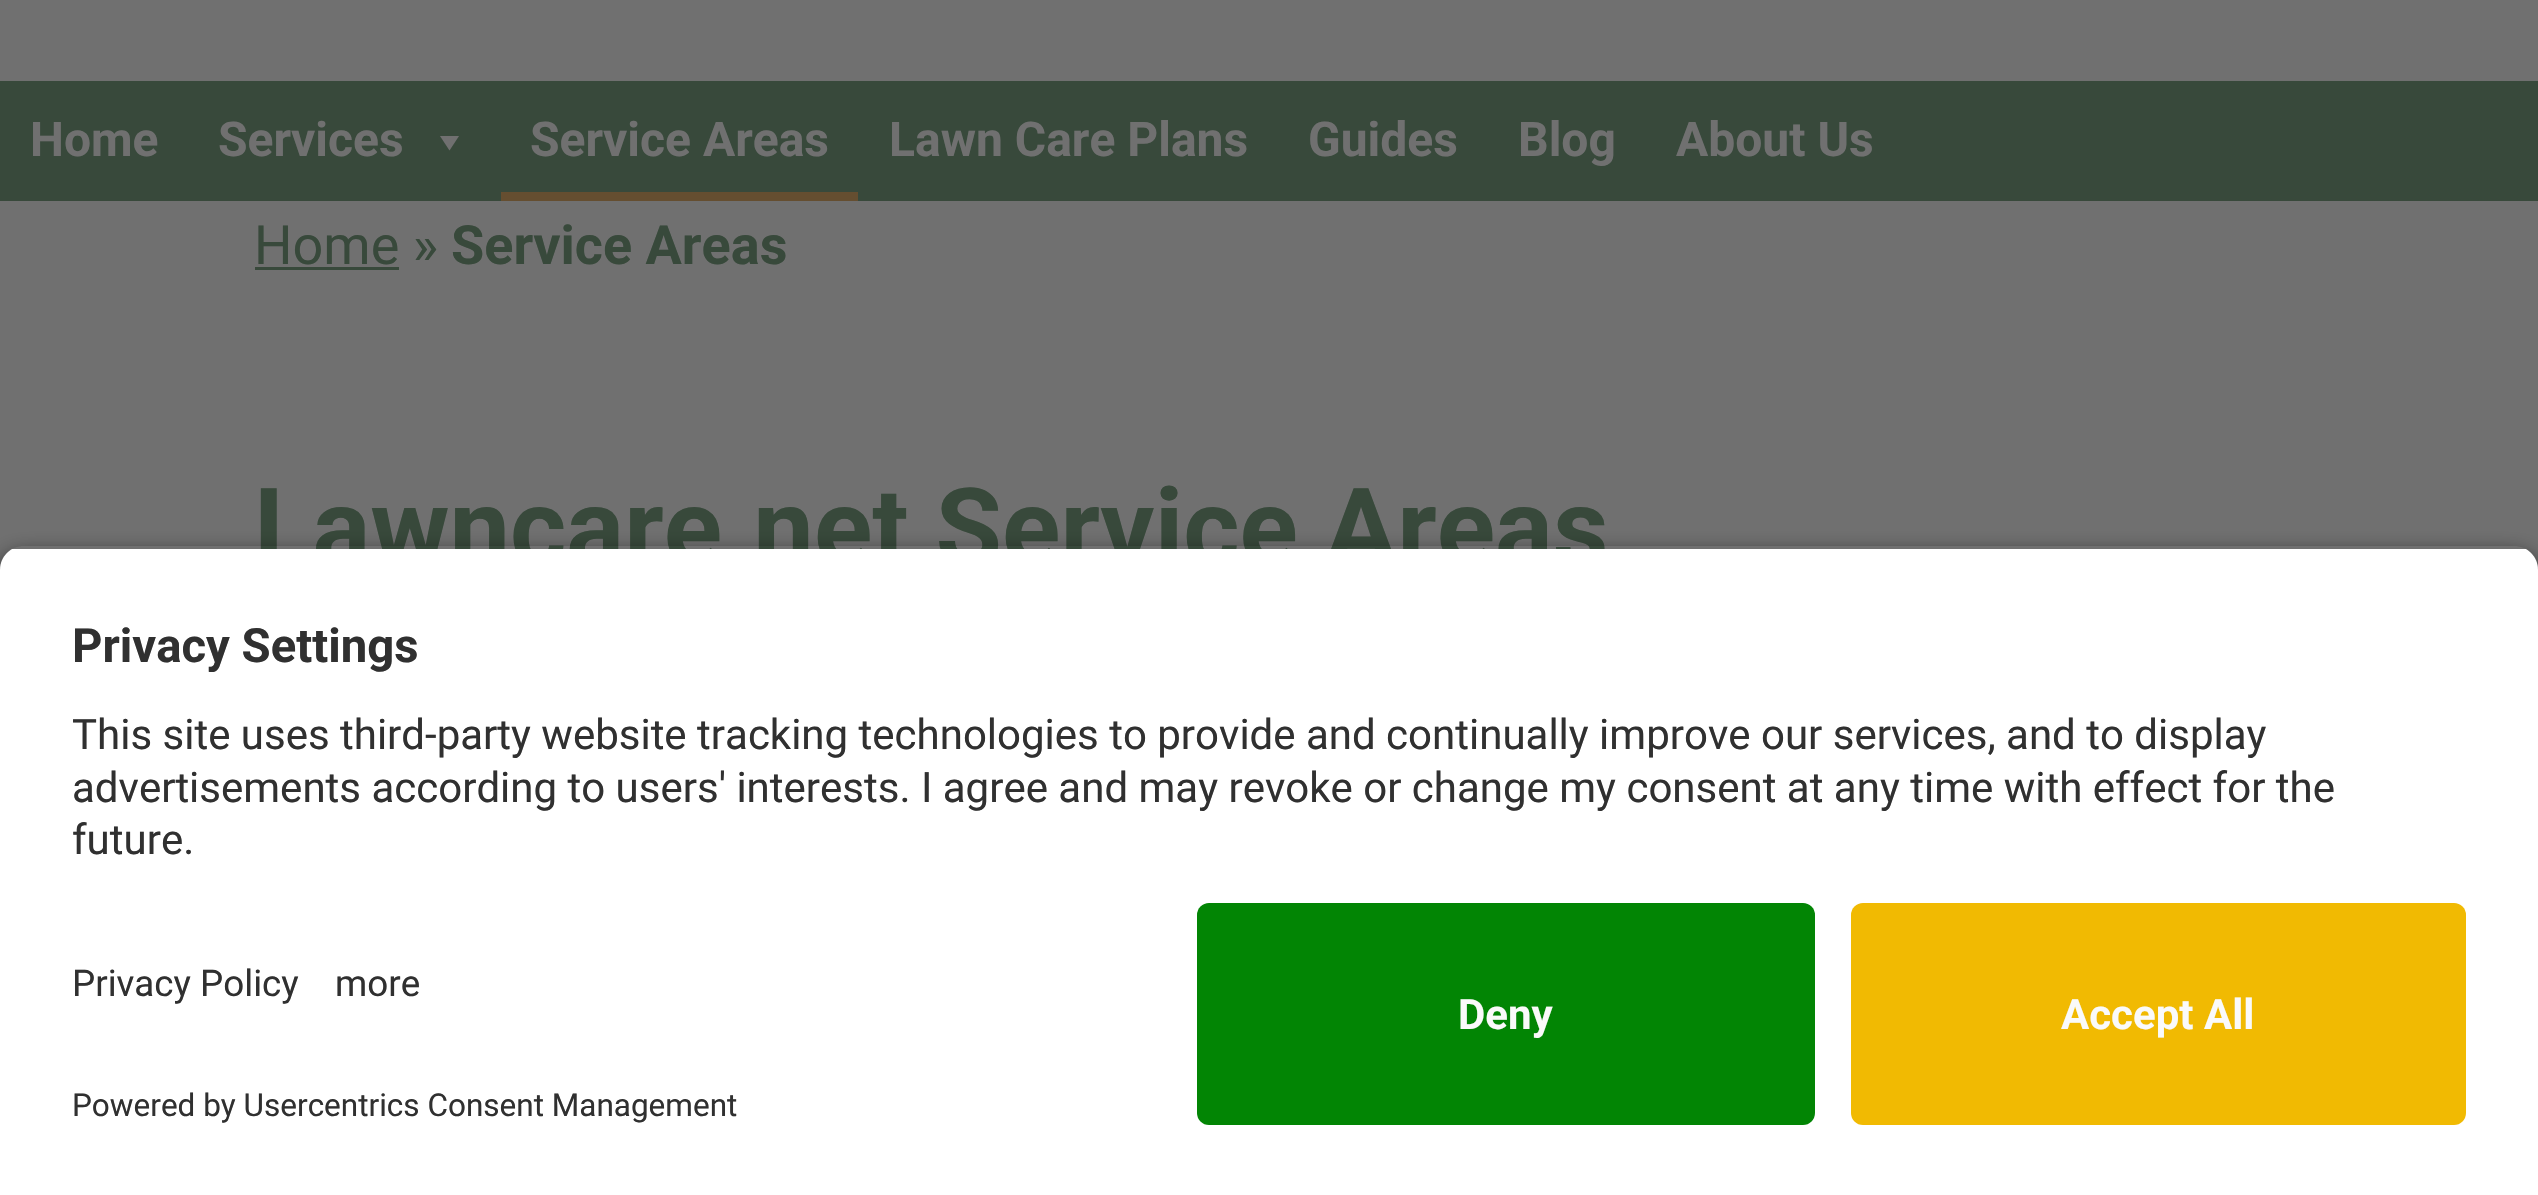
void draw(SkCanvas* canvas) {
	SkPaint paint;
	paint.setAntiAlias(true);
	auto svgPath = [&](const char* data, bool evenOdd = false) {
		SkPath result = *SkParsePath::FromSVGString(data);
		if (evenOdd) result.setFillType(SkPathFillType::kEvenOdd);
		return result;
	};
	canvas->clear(0xff707070);
	paint.setColor(0xff38493b);
	canvas->drawRect(SkRect::MakeXYWH(0, 81, 2538, 120), paint);
	SkFont f1(fontMgr->matchFamilyStyle("Roboto", SkFontStyle::Bold()), 48);
	f1.setSubpixel(true);
	paint.setColor(0xff707070);
	canvas->drawString("Home", 30, 156, f1, paint);
	canvas->drawString("Services", 218, 156, f1, paint);
	canvas->drawPath(svgPath("M459 136L449.5 150.5L440 136Z"), paint);
	paint.setColor(0xff654e30);
	canvas->drawRect(SkRect::MakeXYWH(501, 192, 357, 9), paint);
	paint.setColor(0xff707070);
	canvas->drawString("Service Areas", 530, 156, f1, paint);
	canvas->drawString("Lawn Care Plans", 889, 156, f1, paint);
	canvas->drawString("Guides", 1308, 156, f1, paint);
	canvas->drawString("Blog", 1518, 156, f1, paint);
	canvas->drawString("About Us", 1676, 156, f1, paint);
	SkFont f2(fontMgr->matchFamilyStyle("Roboto", SkFontStyle::Normal()), 54);
	f2.setSubpixel(true);
	paint.setColor(0xff38493b);
	canvas->drawString("Home »", 254, 264, f2, paint);
	canvas->drawRect(SkRect::MakeXYWH(255, 267, 144, 3), paint);
	SkFont f3(fontMgr->matchFamilyStyle("Roboto", SkFontStyle::Bold()), 54);
	f3.setSubpixel(true);
	canvas->drawString("Service Areas", 451, 264, f3, paint);
	SkFont f4(fontMgr->matchFamilyStyle("Roboto", SkFontStyle::Bold()), 108);
	f4.setSubpixel(true);
	canvas->drawString("Lawncare.net Service Areas", 254, 565, f4, paint);
	canvas->save();
	canvas->clipPath(svgPath("M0 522H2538V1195H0ZM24 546H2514C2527.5 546 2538 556.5 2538 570V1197H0V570C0 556.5 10.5 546 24 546Z", true), true);
	paint.setColor(0xcc000000);
	paint.setMaskFilter(SkMaskFilter::MakeBlur(kNormal_SkBlurStyle, 10.5));
	canvas->drawRoundRect(SkRect::MakeXYWH(0, 555, 2538, 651), 24, 24, paint);
	paint.setMaskFilter(nullptr);
	canvas->restore();
	canvas->save();
	canvas->clipPath(svgPath("M24 546H2514C2527.5 546 2538 556.5 2538 570V879H0V570C0 556.5 10.5 546 24 546Z"), true);
	paint.setColor(0xffffffff);
	canvas->drawRect(SkRect::MakeXYWH(0, 549, 2538, 330), paint);
	canvas->restore();
	SkFont f5(fontMgr->matchFamilyStyle("Roboto", SkFontStyle::Bold()), 47.25);
	f5.setSubpixel(true);
	paint.setColor(0xff303030);
	canvas->drawString("Privacy Settings", 72, 662, f5, paint);
	SkFont f6(fontMgr->matchFamilyStyle("Roboto", SkFontStyle::Normal()), 42);
	f6.setSubpixel(true);
	canvas->drawString("This site uses third-party website tracking technologies to provide and continually improve our services, and to display", 72, 749, f6, paint);
	canvas->drawString("advertisements according to users' interests. I agree and may revoke or change my consent at any time with effect for the", 72, 802, f6, paint);
	canvas->drawString("future.", 72, 854, f6, paint);
	paint.setColor(0xffffffff);
	canvas->drawRect(SkRect::MakeXYWH(0, 879, 2538, 316), paint);
	SkFont f7(fontMgr->matchFamilyStyle("Roboto", SkFontStyle::Normal()), 36.75);
	f7.setSubpixel(true);
	paint.setColor(0xff303030);
	canvas->drawString("Privacy Policy", 72, 996, f7, paint);
	canvas->drawString("more", 335, 996, f7, paint);
	SkFont f8(fontMgr->matchFamilyStyle("Roboto", SkFontStyle::Normal()), 31.5);
	f8.setSubpixel(true);
	canvas->drawString("Powered by Usercentrics Consent Management", 72, 1116, f8, paint);
	paint.setColor(0xff028504);
	canvas->drawRoundRect(SkRect::MakeXYWH(1197, 903, 618, 222), 12, 12, paint);
	SkFont f9(fontMgr->matchFamilyStyle("Roboto", SkFontStyle::Bold()), 42);
	f9.setSubpixel(true);
	paint.setColor(0xfffafafa);
	canvas->drawString("Deny", 1458, 1029, f9, paint);
	paint.setColor(0xfff1ba02);
	canvas->drawRoundRect(SkRect::MakeXYWH(1851, 903, 615, 222), 12, 12, paint);
	paint.setColor(0xfffafafa);
	canvas->drawString("Accept All", 2061, 1029, f9, paint);
}
